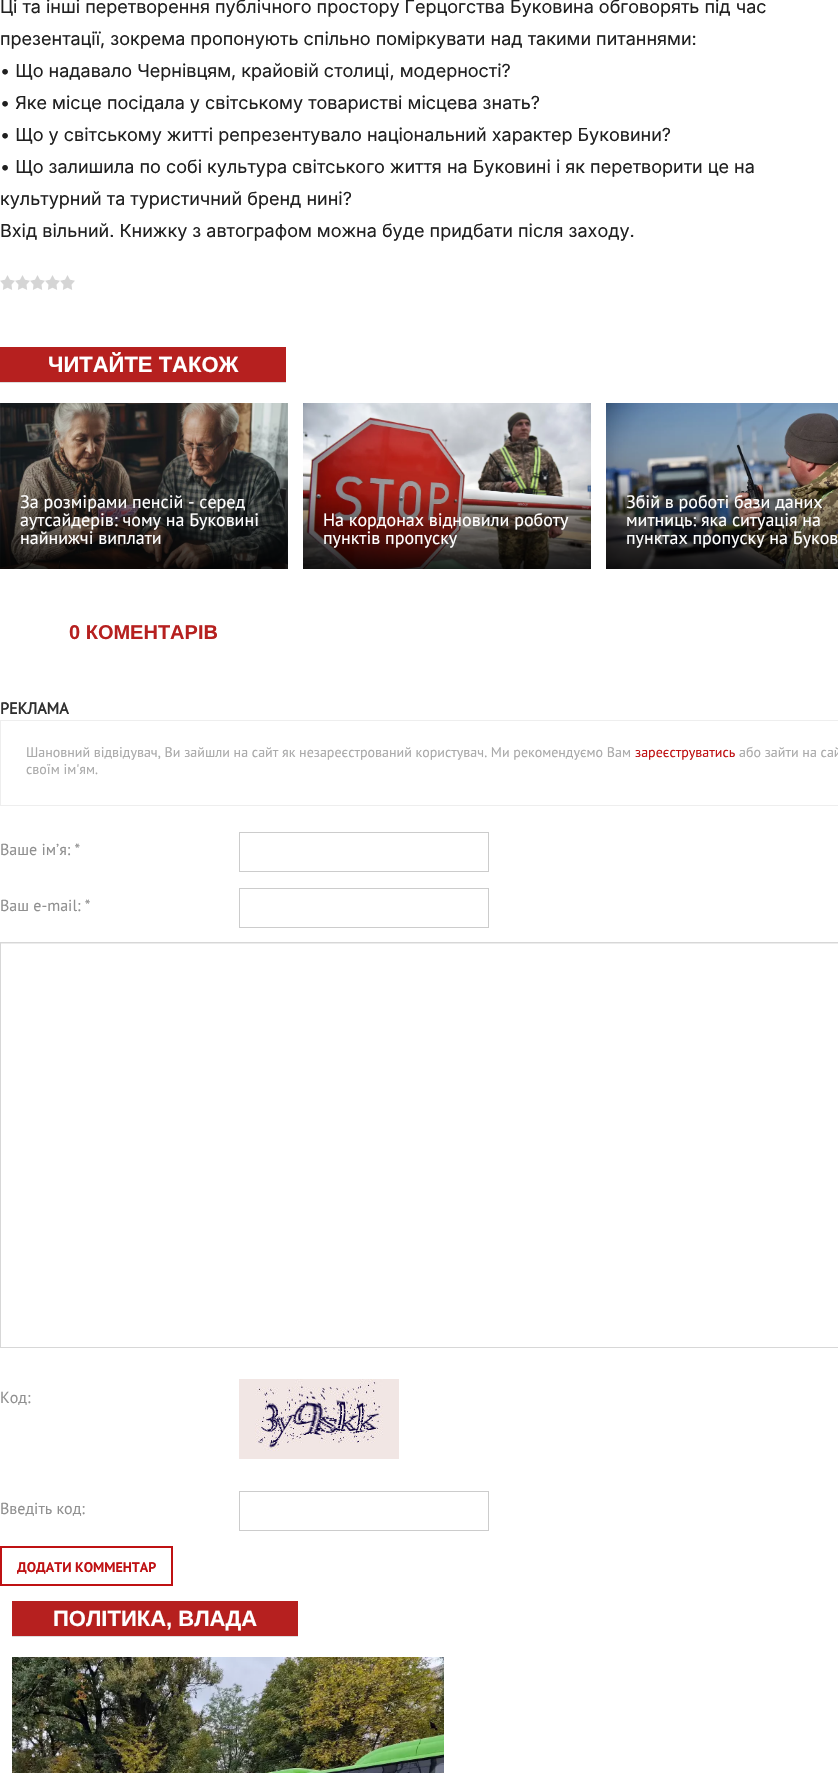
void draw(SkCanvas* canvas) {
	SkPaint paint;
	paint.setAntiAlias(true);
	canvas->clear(0xffffffff);
	SkFont f1(fontMgr->matchFamilyStyle("Inter", SkFontStyle::Normal()), 18);
	f1.setSubpixel(true);
	paint.setColor(0xff202020);
	canvas->drawString("Ці та інші перетворення публічного простору Герцогства Буковина обговорять під час", 0, 13, f1, paint);
	canvas->drawString("презентації, зокрема пропонують спільно поміркувати над такими питаннями:", 0, 45, f1, paint);
	canvas->drawString("• Що надавало Чернівцям, крайовій столиці, модерності?", 0, 77, f1, paint);
	canvas->drawString("• Яке місце посідала у світському товаристві місцева знать?", 0, 109, f1, paint);
	canvas->drawString("• Що у світському житті репрезентувало національний характер Буковини?", 0, 141, f1, paint);
	canvas->drawString("• Що залишила по собі культура світського життя на Буковині і як перетворити це на", 0, 173, f1, paint);
	canvas->drawString("культурний та туристичний бренд нині?", 0, 205, f1, paint);
	canvas->drawString("Вхід вільний. Книжку з автографом можна буде придбати після заходу.", 0, 237, f1, paint);
	canvas->drawImageRect(SkImages::DeferredFromEncodedData(SkData::MakeFromFileName("img1.png")), SkRect::MakeXYWH(0, 275, 75, 15), SkSamplingOptions());
	paint.setColor(0xffb6201f);
	canvas->drawRect(SkRect::MakeXYWH(0, 347, 286, 35), paint);
	paint.setColor(0xffdddddd);
	canvas->drawRect(SkRect::MakeXYWH(0, 382, 286, 1), paint);
	SkFont f2(fontMgr->matchFamilyStyle("Liberation Sans", SkFontStyle::Bold()), 22);
	f2.setSubpixel(true);
	paint.setColor(0xffffffff);
	canvas->drawString("ЧИТАЙТЕ ТАКОЖ", 48, 372, f2, paint);
	canvas->drawImageRect(SkImages::DeferredFromEncodedData(SkData::MakeFromFileName("img2.png")), SkRect::MakeXYWH(0, 403, 288, 166), SkSamplingOptions());
	SkFont f3(fontMgr->matchFamilyStyle("PT Sans", SkFontStyle::Normal()), 18);
	f3.setSubpixel(true);
	canvas->drawString("За розмірами пенсій - серед", 20, 508, f3, paint);
	canvas->drawString("аутсайдерів: чому на Буковині", 20, 526, f3, paint);
	canvas->drawString("найнижчі виплати", 20, 544, f3, paint);
	canvas->drawImageRect(SkImages::DeferredFromEncodedData(SkData::MakeFromFileName("img3.png")), SkRect::MakeXYWH(303, 403, 288, 166), SkSamplingOptions());
	canvas->drawString("На кордонах відновили роботу", 323, 526, f3, paint);
	canvas->drawString("пунктів пропуску", 323, 544, f3, paint);
	canvas->drawImageRect(SkImages::DeferredFromEncodedData(SkData::MakeFromFileName("img4.png")), SkRect::MakeXYWH(606, 403, 232, 166), SkSamplingOptions());
	canvas->drawString("Збій в роботі бази даних", 626, 508, f3, paint);
	canvas->drawString("митниць: яка ситуація на", 626, 526, f3, paint);
	canvas->drawString("пунктах пропуску на Буков", 626, 544, f3, paint);
	SkFont f4(fontMgr->matchFamilyStyle("Liberation Sans", SkFontStyle::Bold()), 20);
	f4.setSubpixel(true);
	paint.setColor(0xffb6201f);
	canvas->drawString("0 КОМЕНТАРІВ", 69, 639, f4, paint);
	SkFont f5(fontMgr->matchFamilyStyle("PT Sans", SkFontStyle::Bold()), 16);
	f5.setSubpixel(true);
	paint.setColor(0xff303030);
	canvas->drawString("РЕКЛАМА", 0, 714, f5, paint);
	paint.setStroke(true);
	paint.setStrokeWidth(1);
	paint.setColor(0xffeeeeee);
	canvas->drawRect(SkRect::MakeXYWH(0.5, 720.5, 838, 85), paint);
	SkFont f6(fontMgr->matchFamilyStyle("PT Sans", SkFontStyle::Normal()), 14);
	f6.setSubpixel(true);
	paint.setStroke(false);
	paint.setColor(0xffaaaaaa);
	canvas->drawString("Шановний відвідувач, Ви зайшли на сайт як незареєстрований користувач. Ми рекомендуємо Вам", 26, 757, f6, paint);
	paint.setColor(0xffbf1113);
	canvas->drawString("зареєструватись", 635, 757, f6, paint);
	paint.setColor(0xffaaaaaa);
	canvas->drawString("або зайти на сай", 739, 757, f6, paint);
	canvas->drawString("своїм ім'ям.", 26, 774, f6, paint);
	SkFont f7(fontMgr->matchFamilyStyle("PT Sans", SkFontStyle::Normal()), 16);
	f7.setSubpixel(true);
	paint.setColor(0xff909090);
	canvas->drawString("Ваше ім’я: *", 0, 855, f7, paint);
	paint.setStroke(true);
	paint.setColor(0xffcccccc);
	canvas->drawRect(SkRect::MakeXYWH(239.5, 832.5, 249, 39), paint);
	paint.setStroke(false);
	paint.setColor(0xff909090);
	canvas->drawString("Ваш e-mail: *", 0, 911, f7, paint);
	paint.setStroke(true);
	paint.setColor(0xffcccccc);
	canvas->drawRect(SkRect::MakeXYWH(239.5, 888.5, 249, 39), paint);
	paint.setStroke(false);
	paint.setColor(0xffececec);
	canvas->drawRect(SkRect::MakeXYWH(1, 943, 837, 1), paint);
	paint.setStroke(true);
	paint.setColor(0xffd7d7d7);
	canvas->drawRect(SkRect::MakeXYWH(0.5, 942.5, 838, 405), paint);
	paint.setStroke(false);
	paint.setColor(0xff909090);
	canvas->drawString("Код:", 0, 1403, f7, paint);
	canvas->drawImageRect(SkImages::DeferredFromEncodedData(SkData::MakeFromFileName("img5.png")), SkRect::MakeXYWH(239, 1379, 160, 80), SkSamplingOptions());
	canvas->drawString("Введіть код:", 0, 1514, f7, paint);
	paint.setStroke(true);
	paint.setColor(0xffcccccc);
	canvas->drawRect(SkRect::MakeXYWH(239.5, 1491.5, 249, 39), paint);
	paint.setStrokeWidth(2);
	paint.setColor(0xffbf1113);
	canvas->drawRect(SkRect::MakeXYWH(1, 1547, 171, 38), paint);
	SkFont f8(fontMgr->matchFamilyStyle("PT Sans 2", SkFontStyle::Bold()), 14);
	f8.setSubpixel(true);
	paint.setStroke(false);
	canvas->drawString("ДОДАТИ КОММЕНТАР", 17, 1572, f8, paint);
	paint.setColor(0xffb6201f);
	canvas->drawRect(SkRect::MakeXYWH(12, 1601, 286, 35), paint);
	paint.setColor(0xffdddddd);
	canvas->drawRect(SkRect::MakeXYWH(12, 1636, 286, 1), paint);
	paint.setColor(0xffffffff);
	canvas->drawString("ПОЛІТИКА, ВЛАДА", 53, 1626, f2, paint);
	canvas->drawImageRect(SkImages::DeferredFromEncodedData(SkData::MakeFromFileName("img6.png")), SkRect::MakeXYWH(12, 1657, 432, 116), SkSamplingOptions());
}
